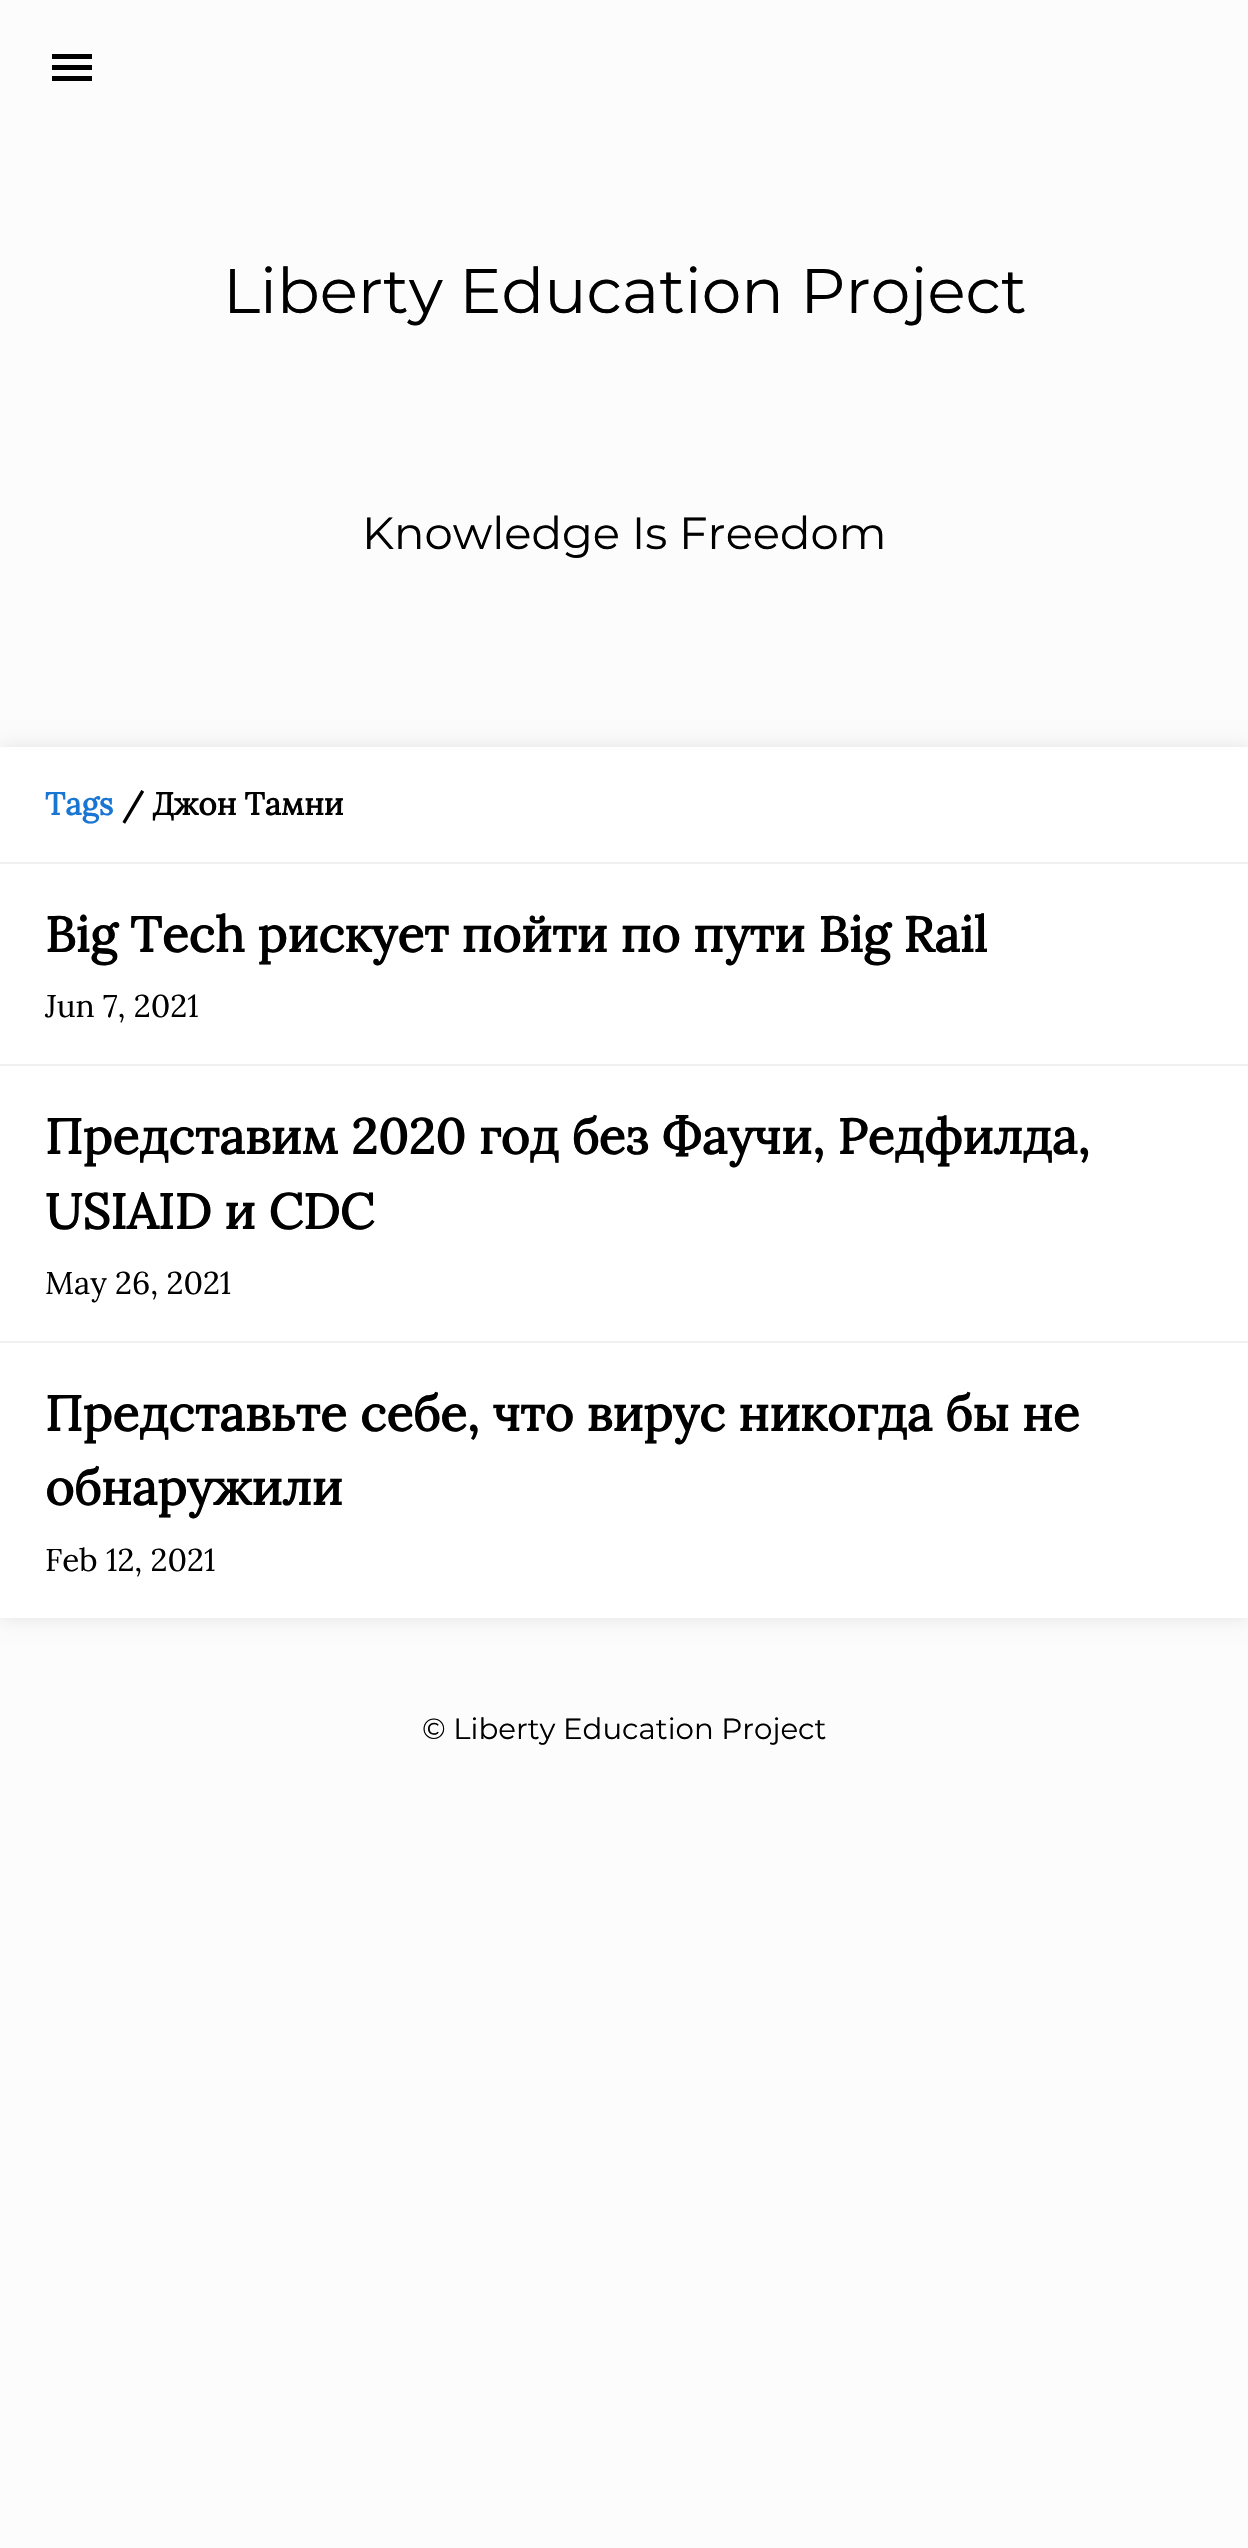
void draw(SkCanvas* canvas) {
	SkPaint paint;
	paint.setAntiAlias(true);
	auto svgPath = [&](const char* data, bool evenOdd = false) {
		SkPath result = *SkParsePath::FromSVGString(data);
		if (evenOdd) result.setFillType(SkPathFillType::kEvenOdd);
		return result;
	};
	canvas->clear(0xfffcfcfc);
	paint.setColor(0xff000000);
	canvas->drawPath(svgPath("M52 54H92V59H52ZM52 70V65H92V70ZM52 81V76H92V81Z"), paint);
	SkFont f1(fontMgr->matchFamilyStyle("Montserrat", SkFontStyle(100, SkFontStyle::kNormal_Width, SkFontStyle::kUpright_Slant)), 63);
	f1.setSubpixel(true);
	canvas->drawString("Liberty Education Project", 223, 313, f1, paint);
	SkFont f2(fontMgr->matchFamilyStyle("Montserrat", SkFontStyle(100, SkFontStyle::kNormal_Width, SkFontStyle::kUpright_Slant)), 45);
	f2.setSubpixel(true);
	canvas->drawString("Knowledge Is Freedom", 362, 549, f2, paint);
	paint.setColor(0x1a000000);
	paint.setMaskFilter(SkMaskFilter::MakeBlur(kNormal_SkBlurStyle, 9));
	canvas->drawRect(SkRect::MakeXYWH(0, 747, 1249, 871), paint);
	paint.setMaskFilter(nullptr);
	paint.setColor(0xffffffff);
	canvas->drawRect(SkRect::MakeXYWH(0, 747, 1248, 871), paint);
	paint.setColor(0xfff0f0f0);
	canvas->drawRect(SkRect::MakeXYWH(0, 862, 1248, 2), paint);
	SkFont f3(fontMgr->matchFamilyStyle("Lora", SkFontStyle::Bold()), 31.5);
	f3.setSubpixel(true);
	paint.setColor(0xff1976d2);
	canvas->drawString("Tags", 45, 815, f3, paint);
	paint.setColor(0xff000000);
	canvas->drawString("/ Джон Тамни", 122, 815, f3, paint);
	paint.setColor(0xfff0f0f0);
	canvas->drawRect(SkRect::MakeXYWH(0, 1064, 1248, 2), paint);
	SkFont f4(fontMgr->matchFamilyStyle("Lora", SkFontStyle::Bold()), 49.5);
	f4.setSubpixel(true);
	paint.setColor(0xff000000);
	canvas->drawString("Big Tech рискует пойти по пути Big Rail", 45, 952, f4, paint);
	SkFont f5(fontMgr->matchFamilyStyle("Lora", SkFontStyle::Normal()), 31.5);
	f5.setSubpixel(true);
	canvas->drawString("Jun 7, 2021", 45, 1017, f5, paint);
	paint.setColor(0xfff0f0f0);
	canvas->drawRect(SkRect::MakeXYWH(0, 1341, 1248, 2), paint);
	paint.setColor(0xff000000);
	canvas->drawString("Представим 2020 год без Фаучи, Редфилда,", 45, 1154, f4, paint);
	canvas->drawString("USIAID и CDC", 45, 1229, f4, paint);
	canvas->drawString("May 26, 2021", 45, 1294, f5, paint);
	canvas->drawString("Представьте себе, что вирус никогда бы не", 45, 1431, f4, paint);
	canvas->drawString("обнаружили", 45, 1505, f4, paint);
	canvas->drawString("Feb 12, 2021", 45, 1571, f5, paint);
	SkFont f6(fontMgr->matchFamilyStyle("Montserrat", SkFontStyle(100, SkFontStyle::kNormal_Width, SkFontStyle::kUpright_Slant)), 29.25);
	f6.setSubpixel(true);
	canvas->drawString("© Liberty Education Project", 422, 1739, f6, paint);
}
